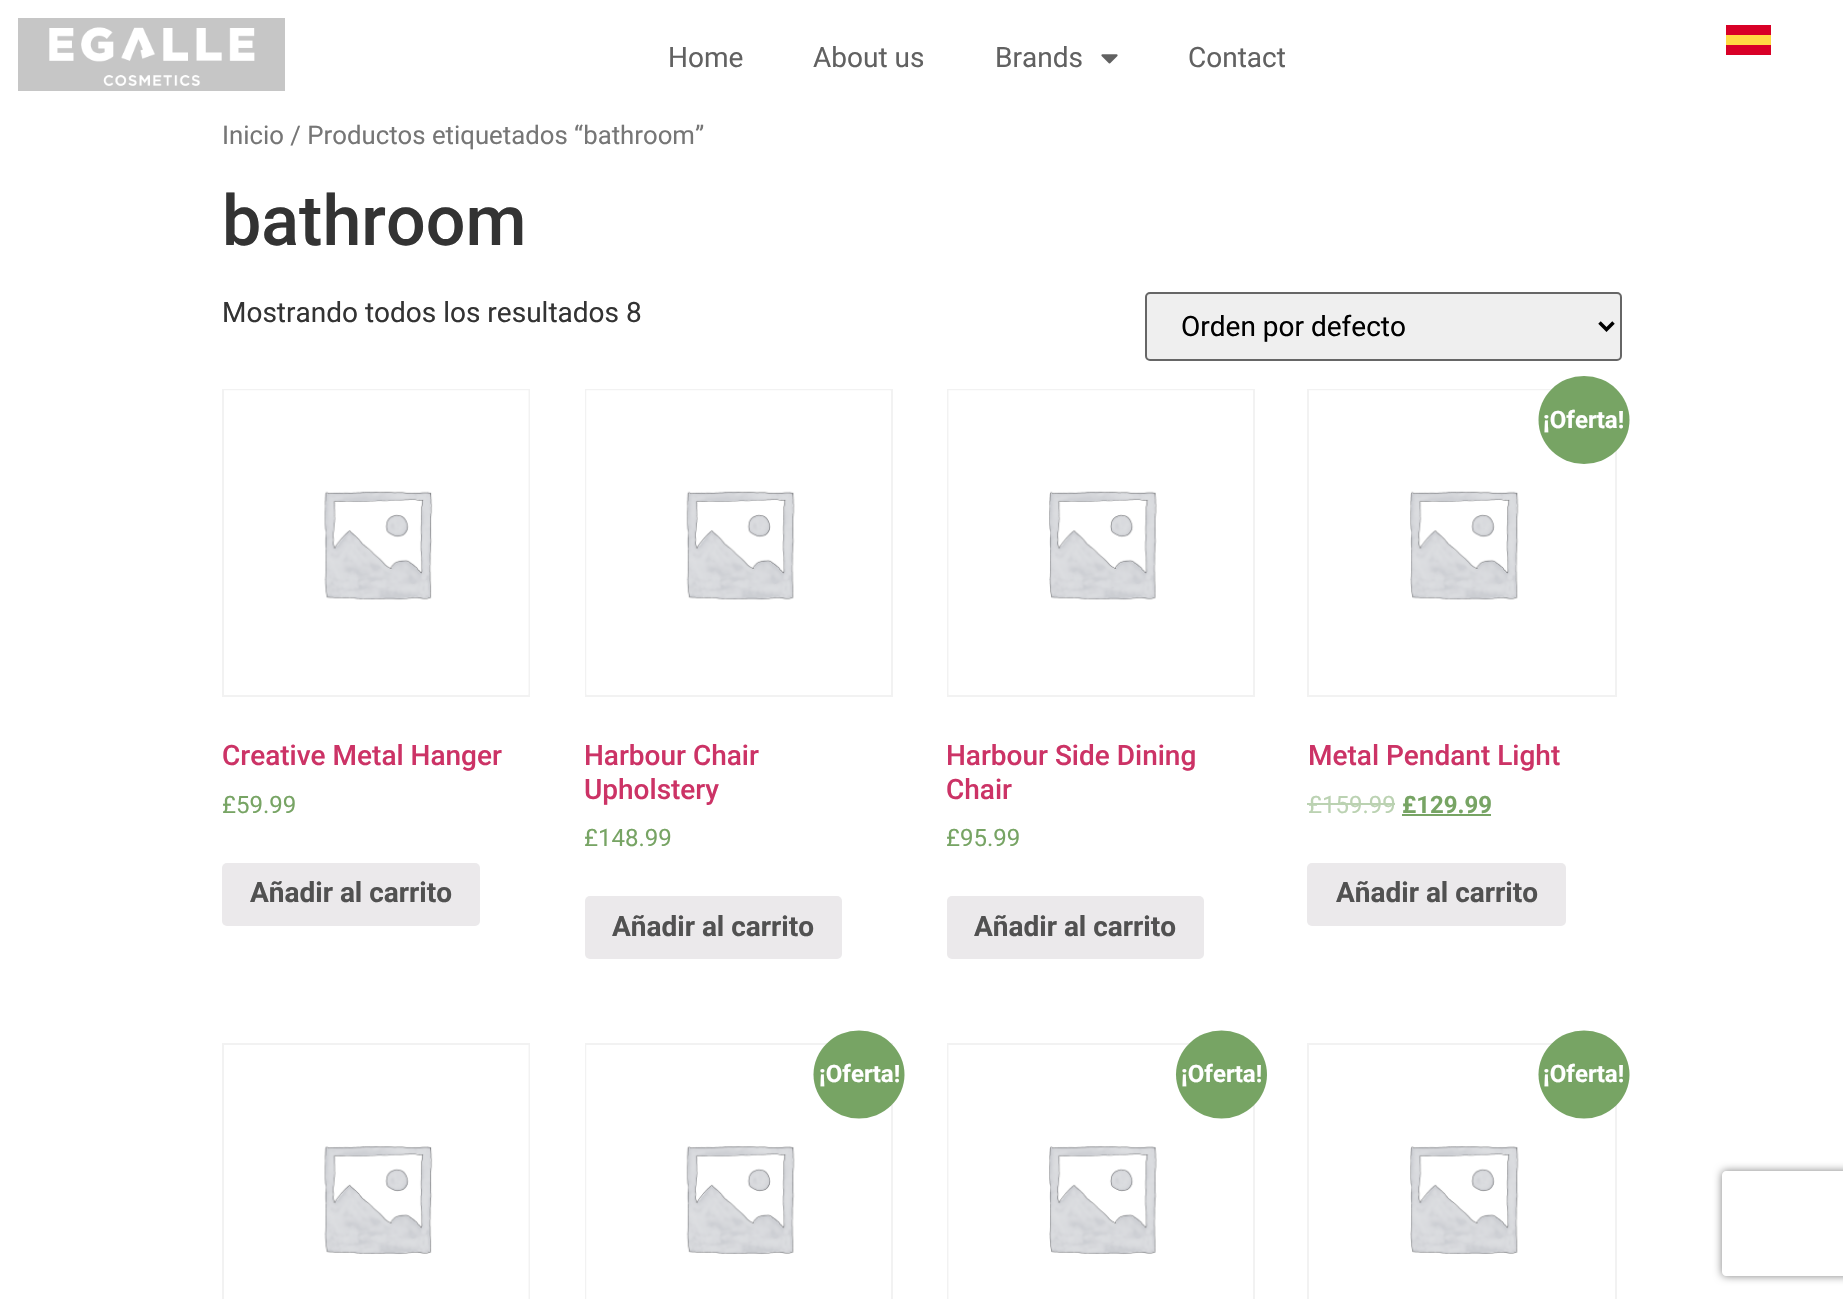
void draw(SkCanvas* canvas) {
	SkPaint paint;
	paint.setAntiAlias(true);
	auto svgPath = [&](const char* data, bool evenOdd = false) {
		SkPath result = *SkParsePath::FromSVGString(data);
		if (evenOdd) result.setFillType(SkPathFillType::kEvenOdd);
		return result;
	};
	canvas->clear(0xffffffff);
	paint.setColor(0xffc6c6c6);
	canvas->drawRect(SkRect::MakeXYWH(18, 18, 267, 73), paint);
	canvas->drawImageRect(SkImages::DeferredFromEncodedData(SkData::MakeFromFileName("img1.png")), SkRect::MakeXYWH(49, 27, 206, 59), SkSamplingOptions());
	SkFont f1(fontMgr->matchFamilyStyle("Roboto", SkFontStyle::Normal()), 28);
	f1.setSubpixel(true);
	paint.setColor(0xff616161);
	canvas->drawString("Home", 668, 67, f1, paint);
	canvas->drawString("About us", 813, 67, f1, paint);
	canvas->drawString("Brands", 995, 67, f1, paint);
	canvas->drawImageRect(SkImages::DeferredFromEncodedData(SkData::MakeFromFileName("img2.png")), SkRect::MakeXYWH(1101, 54, 17, 10), SkSamplingOptions());
	canvas->drawString("Contact", 1188, 67, f1, paint);
	paint.setColor(0xffffda44);
	canvas->drawRect(SkRect::MakeXYWH(1726, 35, 45, 10), paint);
	paint.setColor(0xffd80027);
	canvas->drawRect(SkRect::MakeXYWH(1726, 25, 45, 10), paint);
	canvas->drawRect(SkRect::MakeXYWH(1726, 45, 45, 10), paint);
	SkFont f2(fontMgr->matchFamilyStyle("Roboto", SkFontStyle::Normal()), 25.75);
	f2.setSubpixel(true);
	paint.setColor(0xff767676);
	canvas->drawString("Inicio / Productos etiquetados “bathroom”", 222, 144, f2, paint);
	SkFont f3(fontMgr->matchFamilyStyle("Roboto", SkFontStyle(500, SkFontStyle::kNormal_Width, SkFontStyle::kUpright_Slant)), 70);
	f3.setSubpixel(true);
	paint.setColor(0xff333333);
	canvas->drawString("bathroom", 222, 245, f3, paint);
	canvas->drawString("Mostrando todos los resultados 8", 222, 322, f1, paint);
	paint.setColor(0xffefefef);
	canvas->drawRoundRect(SkRect::MakeXYWH(1146, 293, 475, 67), 4, 4, paint);
	paint.setStroke(true);
	paint.setStrokeWidth(2);
	paint.setColor(0xff666666);
	canvas->drawRoundRect(SkRect::MakeXYWH(1146, 293, 475, 67), 4, 4, paint);
	paint.setStrokeWidth(3.5);
	paint.setColor(0xff000000);
	canvas->drawPath(svgPath("M1599.5 322.5L1606.5 329.5L1613.5 322.5"), paint);
	paint.setStroke(false);
	canvas->drawString("Orden por defecto", 1181, 336, f1, paint);
	paint.setStroke(true);
	paint.setStrokeWidth(2);
	paint.setColor(0xfff2f2f2);
	canvas->drawRect(SkRect::MakeXYWH(223, 390, 306, 306), paint);
	canvas->drawImageRect(SkImages::DeferredFromEncodedData(SkData::MakeFromFileName("img3.png")), SkRect::MakeXYWH(224, 390, 305, 305), SkSamplingOptions());
	SkFont f4(fontMgr->matchFamilyStyle("Roboto", SkFontStyle(500, SkFontStyle::kNormal_Width, SkFontStyle::kUpright_Slant)), 28);
	f4.setSubpixel(true);
	paint.setStroke(false);
	paint.setColor(0xffcc3366);
	canvas->drawString("Creative Metal Hanger", 222, 765, f4, paint);
	SkFont f5(fontMgr->matchFamilyStyle("Roboto", SkFontStyle::Normal()), 24);
	f5.setSubpixel(true);
	paint.setColor(0xff77a464);
	canvas->drawString("£59.99", 222, 813, f5, paint);
	paint.setColor(0xffebe9eb);
	canvas->drawRoundRect(SkRect::MakeXYWH(222, 863, 258, 63), 5, 5, paint);
	SkFont f6(fontMgr->matchFamilyStyle("Roboto", SkFontStyle::Bold()), 28);
	f6.setSubpixel(true);
	paint.setColor(0xff515151);
	canvas->drawString("Añadir al carrito", 250, 902, f6, paint);
	paint.setStroke(true);
	paint.setColor(0xfff2f2f2);
	canvas->drawRect(SkRect::MakeXYWH(586, 390, 306, 306), paint);
	canvas->drawImageRect(SkImages::DeferredFromEncodedData(SkData::MakeFromFileName("img4.png")), SkRect::MakeXYWH(586, 390, 305, 305), SkSamplingOptions());
	paint.setStroke(false);
	paint.setColor(0xffcc3366);
	canvas->drawString("Harbour Chair", 584, 765, f4, paint);
	canvas->drawString("Upholstery", 584, 799, f4, paint);
	paint.setColor(0xff77a464);
	canvas->drawString("£148.99", 584, 846, f5, paint);
	paint.setColor(0xffebe9eb);
	canvas->drawRoundRect(SkRect::MakeXYWH(585, 896, 257, 63), 5, 5, paint);
	paint.setColor(0xff515151);
	canvas->drawString("Añadir al carrito", 612, 936, f6, paint);
	paint.setStroke(true);
	paint.setColor(0xfff2f2f2);
	canvas->drawRect(SkRect::MakeXYWH(948, 390, 306, 306), paint);
	canvas->drawImageRect(SkImages::DeferredFromEncodedData(SkData::MakeFromFileName("img5.png")), SkRect::MakeXYWH(948, 390, 305, 305), SkSamplingOptions());
	paint.setStroke(false);
	paint.setColor(0xffcc3366);
	canvas->drawString("Harbour Side Dining", 946, 765, f4, paint);
	canvas->drawString("Chair", 946, 799, f4, paint);
	paint.setColor(0xff77a464);
	canvas->drawString("£95.99", 946, 846, f5, paint);
	paint.setColor(0xffebe9eb);
	canvas->drawRoundRect(SkRect::MakeXYWH(947, 896, 257, 63), 5, 5, paint);
	paint.setColor(0xff515151);
	canvas->drawString("Añadir al carrito", 974, 936, f6, paint);
	paint.setStroke(true);
	paint.setColor(0xfff2f2f2);
	canvas->drawRect(SkRect::MakeXYWH(1308, 390, 308, 306), paint);
	canvas->drawImageRect(SkImages::DeferredFromEncodedData(SkData::MakeFromFileName("img6.png")), SkRect::MakeXYWH(1309, 390, 306, 210), SkSamplingOptions());
	paint.setStroke(false);
	paint.setColor(0xff77a464);
	canvas->drawOval(SkRect::MakeXYWH(1538.5, 376, 91, 88), paint);
	SkFont f7(fontMgr->matchFamilyStyle("Roboto", SkFontStyle::Bold()), 24);
	f7.setSubpixel(true);
	paint.setColor(0xffffffff);
	canvas->drawString("¡Oferta!", 1543, 428, f7, paint);
	paint.setColor(0xffcc3366);
	canvas->drawString("Metal Pendant Light", 1308, 765, f4, paint);
	paint.setColor(0xffbbd2b2);
	canvas->drawString("£159.99", 1308, 813, f5, paint);
	canvas->drawRect(SkRect::MakeXYWH(1307, 803, 88, 2), paint);
	paint.setColor(0xff77a464);
	canvas->drawString("£129.99", 1402, 813, f7, paint);
	canvas->drawRect(SkRect::MakeXYWH(1402, 814, 89, 2), paint);
	paint.setColor(0xffebe9eb);
	canvas->drawRoundRect(SkRect::MakeXYWH(1307, 863, 259, 63), 5, 5, paint);
	paint.setColor(0xff515151);
	canvas->drawString("Añadir al carrito", 1336, 902, f6, paint);
	paint.setStroke(true);
	paint.setColor(0xfff2f2f2);
	canvas->drawRect(SkRect::MakeXYWH(223, 1044, 306, 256), paint);
	canvas->drawImageRect(SkImages::DeferredFromEncodedData(SkData::MakeFromFileName("img7.png")), SkRect::MakeXYWH(324, 1045, 205, 254), SkSamplingOptions());
	canvas->drawRect(SkRect::MakeXYWH(586, 1044, 306, 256), paint);
	canvas->drawImageRect(SkImages::DeferredFromEncodedData(SkData::MakeFromFileName("img8.png")), SkRect::MakeXYWH(586, 1045, 209, 254), SkSamplingOptions());
	paint.setStroke(false);
	paint.setColor(0xff77a464);
	canvas->drawOval(SkRect::MakeXYWH(813.5, 1030.5, 91, 88), paint);
	paint.setColor(0xffffffff);
	canvas->drawString("¡Oferta!", 819, 1082, f7, paint);
	paint.setStroke(true);
	paint.setColor(0xfff2f2f2);
	canvas->drawRect(SkRect::MakeXYWH(948, 1044, 306, 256), paint);
	canvas->drawImageRect(SkImages::DeferredFromEncodedData(SkData::MakeFromFileName("img9.png")), SkRect::MakeXYWH(948, 1045, 209, 254), SkSamplingOptions());
	paint.setStroke(false);
	paint.setColor(0xff77a464);
	canvas->drawOval(SkRect::MakeXYWH(1176, 1030.5, 91, 88), paint);
	paint.setColor(0xffffffff);
	canvas->drawString("¡Oferta!", 1181, 1082, f7, paint);
	paint.setStroke(true);
	paint.setColor(0xfff2f2f2);
	canvas->drawRect(SkRect::MakeXYWH(1308, 1044, 308, 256), paint);
	canvas->drawImageRect(SkImages::DeferredFromEncodedData(SkData::MakeFromFileName("img10.png")), SkRect::MakeXYWH(1410, 1146, 109, 108), SkSamplingOptions());
	paint.setStroke(false);
	paint.setColor(0xff77a464);
	canvas->drawOval(SkRect::MakeXYWH(1538.5, 1030.5, 91, 88), paint);
	paint.setColor(0xffffffff);
	canvas->drawString("¡Oferta!", 1543, 1082, f7, paint);
	canvas->save();
	canvas->clipPath(svgPath("M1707 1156H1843V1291H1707ZM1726 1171H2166C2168 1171 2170 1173 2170 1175V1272C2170 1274 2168 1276 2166 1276H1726C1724 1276 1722 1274 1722 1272V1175C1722 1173 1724 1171 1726 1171Z", true), true);
	paint.setColor(0xff808080);
	paint.setMaskFilter(SkMaskFilter::MakeBlur(kNormal_SkBlurStyle, 4.5));
	canvas->drawRoundRect(SkRect::MakeXYWH(1722, 1171, 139, 105), 4, 4, paint);
	paint.setMaskFilter(nullptr);
	canvas->restore();
}
